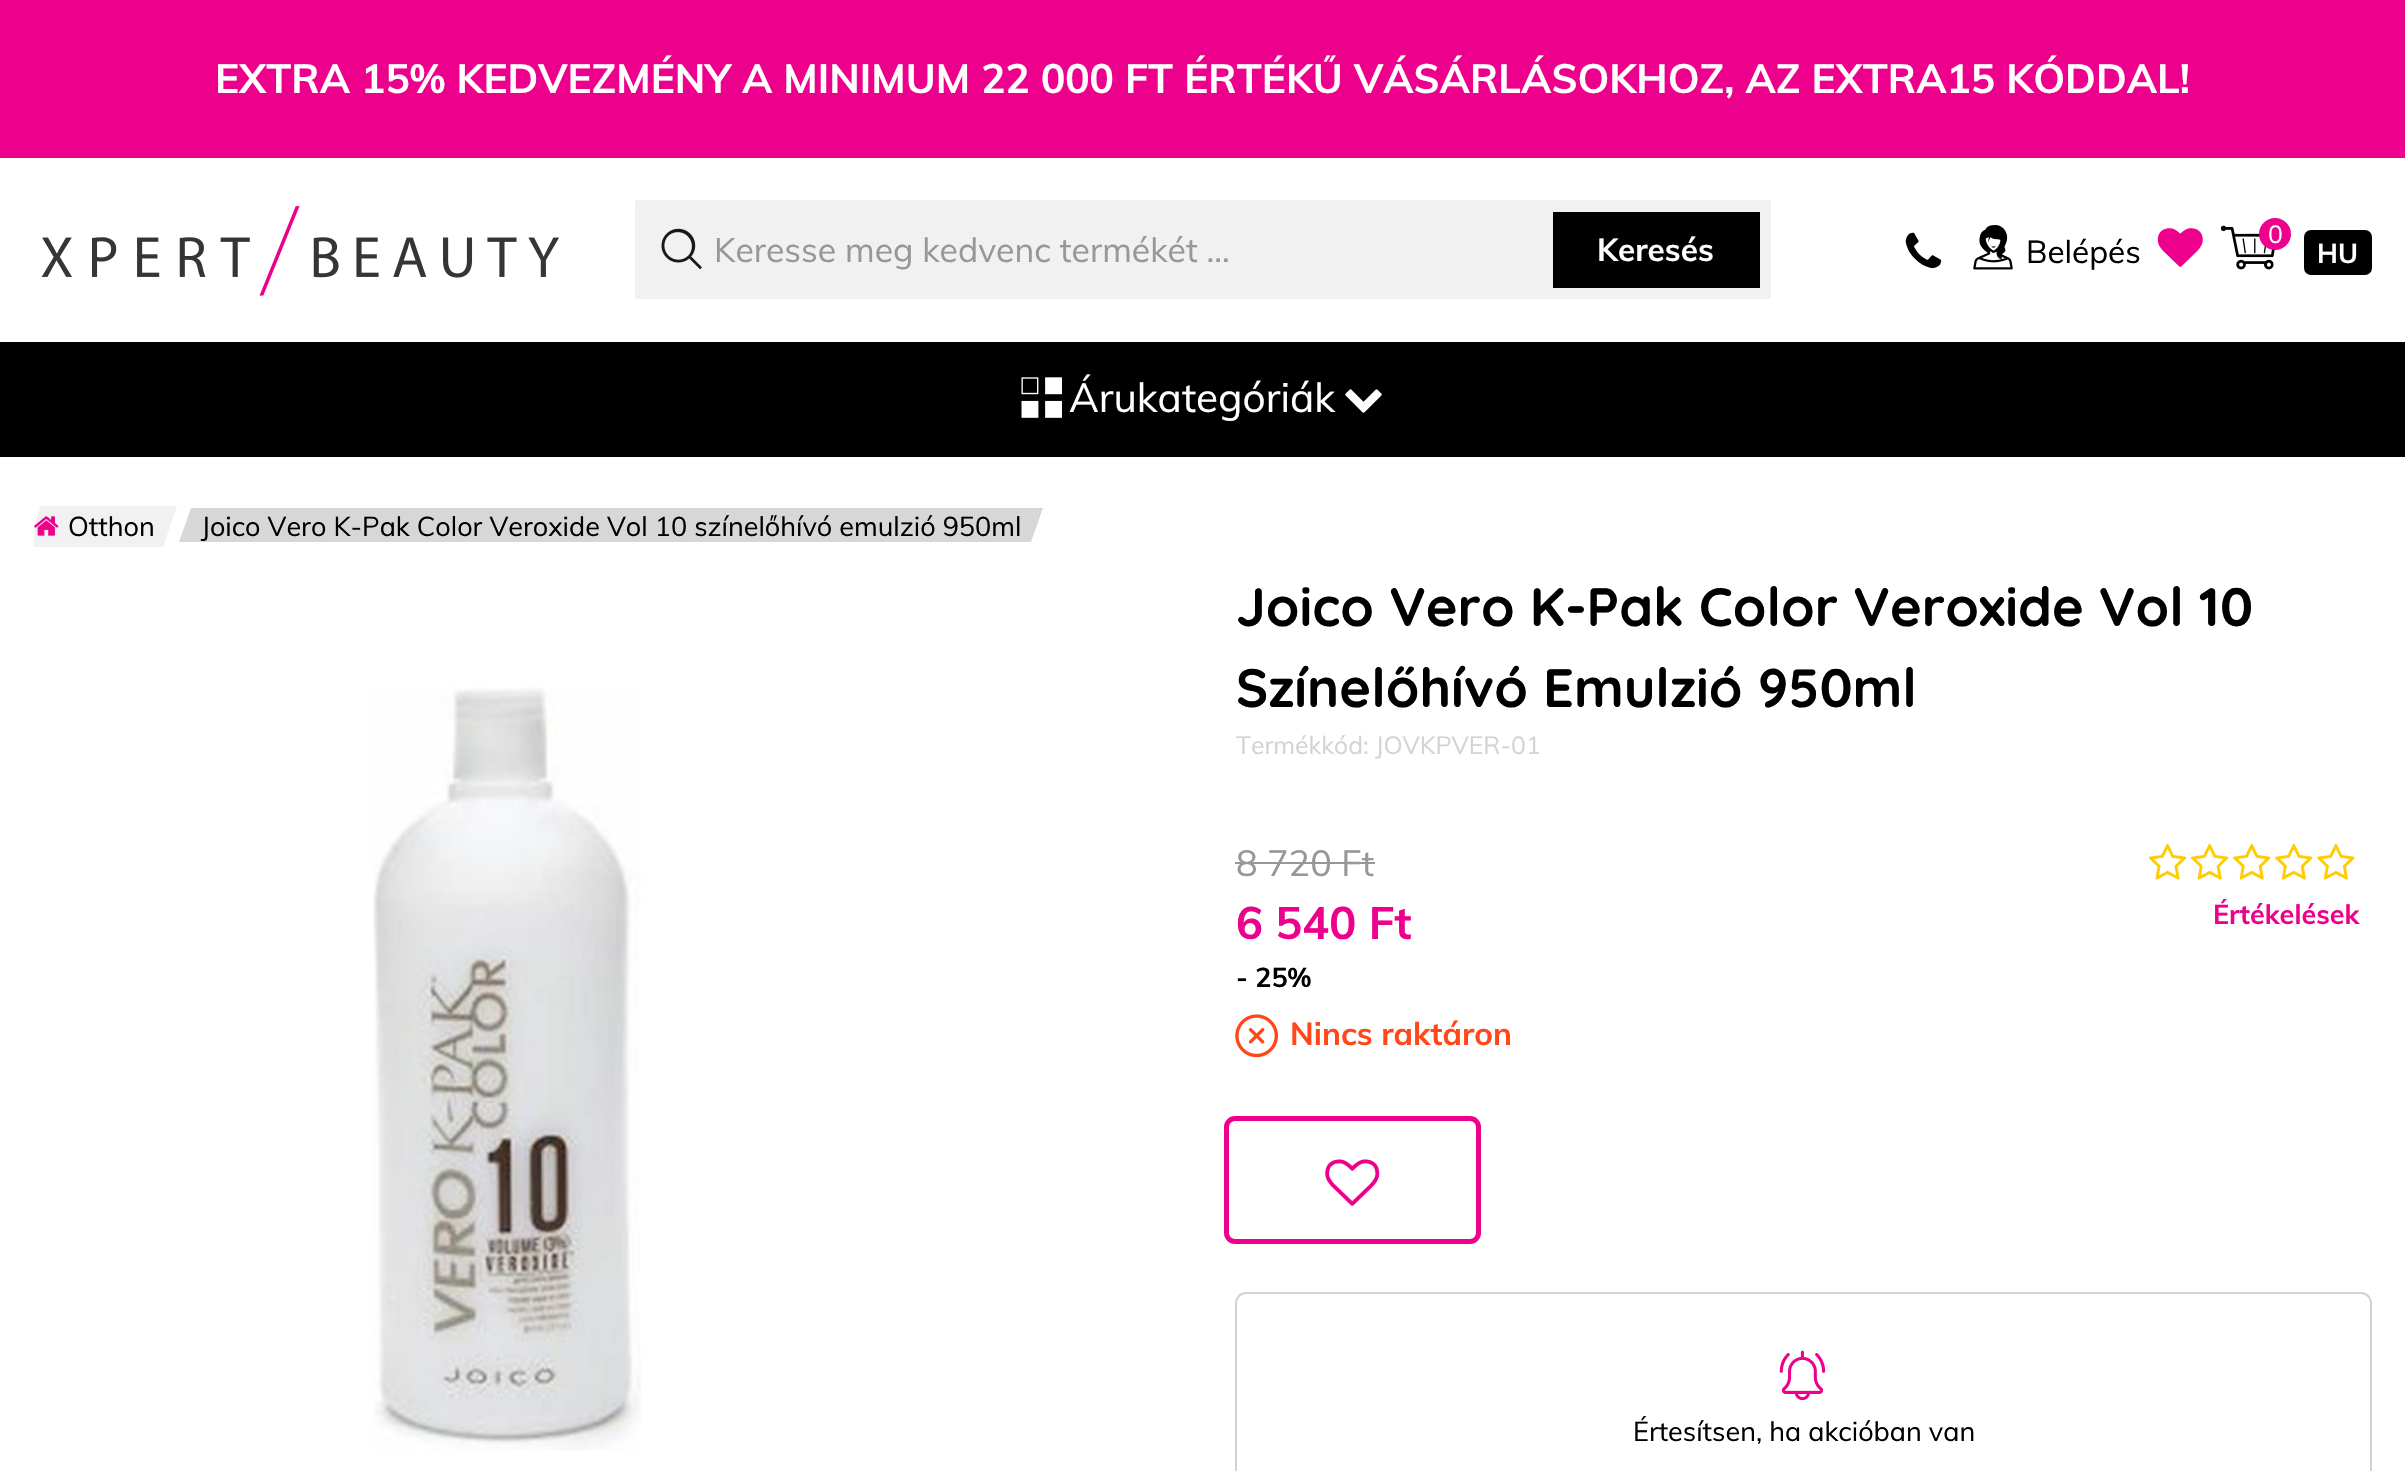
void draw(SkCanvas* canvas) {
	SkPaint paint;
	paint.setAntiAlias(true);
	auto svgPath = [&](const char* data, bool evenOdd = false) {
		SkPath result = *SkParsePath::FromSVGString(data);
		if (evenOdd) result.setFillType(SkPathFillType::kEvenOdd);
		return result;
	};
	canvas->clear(0xffffffff);
	paint.setColor(0xffec008c);
	canvas->drawRect(SkRect::MakeXYWH(0, 0, 2405, 158), paint);
	SkFont f1(fontMgr->matchFamilyStyle("Muli", SkFontStyle::Bold()), 40.5);
	f1.setSubpixel(true);
	paint.setColor(0xffffffff);
	canvas->drawString("EXTRA 15% KEDVEZMÉNY A MINIMUM 22 000 FT ÉRTÉKŰ VÁSÁRLÁSOKHOZ, AZ EXTRA15 KÓDDAL!", 215, 93, f1, paint);
	canvas->drawImageRect(SkImages::DeferredFromEncodedData(SkData::MakeFromFileName("img1.png")), SkRect::MakeXYWH(41, 206, 518, 90), SkSamplingOptions());
	paint.setColor(0xfff1f1f1);
	canvas->drawRoundRect(SkRect::MakeXYWH(635, 200, 1136, 99), 2, 2, paint);
	canvas->drawImageRect(SkImages::DeferredFromEncodedData(SkData::MakeFromFileName("img2.png")), SkRect::MakeXYWH(661, 228, 41, 42), SkSamplingOptions());
	SkFont f2(fontMgr->matchFamilyStyle("Muli", SkFontStyle::Normal()), 33.75);
	f2.setSubpixel(true);
	paint.setColor(0xff979797);
	canvas->drawString("Keresse meg kedvenc termékét ...", 714, 262, f2, paint);
	paint.setColor(0xff000000);
	canvas->drawRect(SkRect::MakeXYWH(1553, 212, 207, 76), paint);
	SkFont f3(fontMgr->matchFamilyStyle("Muli", SkFontStyle::Bold()), 31.5);
	f3.setSubpixel(true);
	paint.setColor(0xffffffff);
	canvas->drawString("Keresés", 1597, 261, f3, paint);
	canvas->drawImageRect(SkImages::DeferredFromEncodedData(SkData::MakeFromFileName("img3.png")), SkRect::MakeXYWH(1905, 232, 37, 37), SkSamplingOptions());
	canvas->drawImageRect(SkImages::DeferredFromEncodedData(SkData::MakeFromFileName("img4.png")), SkRect::MakeXYWH(1973, 225, 40, 45), SkSamplingOptions());
	SkFont f4(fontMgr->matchFamilyStyle("Muli", SkFontStyle::Normal()), 31.5);
	f4.setSubpixel(true);
	paint.setColor(0xff000000);
	canvas->drawString("Belépés", 2026, 263, f4, paint);
	canvas->drawImageRect(SkImages::DeferredFromEncodedData(SkData::MakeFromFileName("img5.png")), SkRect::MakeXYWH(2157, 228, 46, 39), SkSamplingOptions());
	canvas->drawImageRect(SkImages::DeferredFromEncodedData(SkData::MakeFromFileName("img6.png")), SkRect::MakeXYWH(2221, 225, 54, 45), SkSamplingOptions());
	paint.setColor(0xffec008c);
	canvas->drawCircle(2275, 234, 16, paint);
	SkFont f5(fontMgr->matchFamilyStyle("Muli", SkFontStyle::Normal()), 24.75);
	f5.setSubpixel(true);
	paint.setColor(0xffffffff);
	canvas->drawString("0", 2268, 243, f5, paint);
	paint.setColor(0xff000000);
	canvas->drawRoundRect(SkRect::MakeXYWH(2304, 230, 68, 45), 7, 7, paint);
	SkFont f6(fontMgr->matchFamilyStyle("Muli", SkFontStyle::Bold()), 27);
	f6.setSubpixel(true);
	paint.setColor(0xffffffff);
	canvas->drawString("HU", 2317, 263, f6, paint);
	paint.setColor(0xff000000);
	canvas->drawRect(SkRect::MakeXYWH(0, 342, 2405, 115), paint);
	canvas->drawImageRect(SkImages::DeferredFromEncodedData(SkData::MakeFromFileName("img7.png")), SkRect::MakeXYWH(1021, 377, 41, 41), SkSamplingOptions());
	SkFont f7(fontMgr->matchFamilyStyle("Muli", SkFontStyle::Normal()), 40.5);
	f7.setSubpixel(true);
	paint.setColor(0xffffffff);
	canvas->drawString("Árukategóriák", 1069, 412, f7, paint);
	canvas->drawImageRect(SkImages::DeferredFromEncodedData(SkData::MakeFromFileName("img8.png")), SkRect::MakeXYWH(1345, 389, 37, 24), SkSamplingOptions());
	canvas->save();
	canvas->clipRect(SkRect::MakeXYWH(34, 502, 2338, 47));
	paint.setColor(0xfff1f1f1);
	canvas->drawPath(svgPath("M41 506H177L163 547H26Z"), paint);
	canvas->restore();
	canvas->drawImageRect(SkImages::DeferredFromEncodedData(SkData::MakeFromFileName("img9.png")), SkRect::MakeXYWH(34, 516, 25, 20), SkSamplingOptions());
	SkFont f8(fontMgr->matchFamilyStyle("Muli", SkFontStyle::Normal()), 27);
	f8.setSubpixel(true);
	paint.setColor(0xff000000);
	canvas->drawString("Otthon", 68, 536, f8, paint);
	paint.setColor(0xffd7d7d7);
	canvas->drawPath(svgPath("M191 508H1043L1031 542H179Z"), paint);
	paint.setColor(0xff000000);
	canvas->drawString("Joico Vero K-Pak Color Veroxide Vol 10 színelőhívó emulzió 950ml", 201, 536, f8, paint);
	canvas->drawImageRect(SkImages::DeferredFromEncodedData(SkData::MakeFromFileName("img10.png")), SkRect::MakeXYWH(373, 687, 268, 764), SkSamplingOptions());
	SkFont f9(fontMgr->matchFamilyStyle("Quicksand", SkFontStyle(300, SkFontStyle::kNormal_Width, SkFontStyle::kUpright_Slant)), 54);
	f9.setSubpixel(true);
	canvas->drawString("Joico Vero K-Pak Color Veroxide Vol 10", 1236, 626, f9, paint);
	canvas->drawString("Színelőhívó Emulzió 950ml", 1236, 707, f9, paint);
	paint.setColor(0xffd3d3d3);
	canvas->drawString("Termékkód: JOVKPVER-01", 1236, 754, f5, paint);
	SkFont f10(fontMgr->matchFamilyStyle("Muli", SkFontStyle::Normal()), 36);
	f10.setSubpixel(true);
	paint.setColor(0xff979797);
	canvas->drawString("8 720 Ft", 1236, 876, f10, paint);
	canvas->drawRect(SkRect::MakeXYWH(1235, 862, 140, 2), paint);
	SkFont f11(fontMgr->matchFamilyStyle("Muli", SkFontStyle::Bold()), 45);
	f11.setSubpixel(true);
	paint.setColor(0xffec008c);
	canvas->drawString("6 540 Ft", 1236, 939, f11, paint);
	paint.setColor(0xff000000);
	canvas->drawString("- 25%", 1236, 987, f6, paint);
	canvas->drawImageRect(SkImages::DeferredFromEncodedData(SkData::MakeFromFileName("img11.png")), SkRect::MakeXYWH(2149, 843, 206, 37), SkSamplingOptions());
	paint.setColor(0xffec008c);
	canvas->drawString("Értékelések", 2213, 924, f6, paint);
	canvas->drawImageRect(SkImages::DeferredFromEncodedData(SkData::MakeFromFileName("img12.png")), SkRect::MakeXYWH(1235, 1014, 43, 44), SkSamplingOptions());
	paint.setColor(0xffff471a);
	canvas->drawString("Nincs raktáron", 1290, 1045, f3, paint);
	paint.setStroke(true);
	paint.setStrokeWidth(5);
	paint.setColor(0xffec008c);
	canvas->drawRoundRect(SkRect::MakeXYWH(1226.5, 1118.5, 252, 123), 8.5, 8.5, paint);
	canvas->drawImageRect(SkImages::DeferredFromEncodedData(SkData::MakeFromFileName("img13.png")), SkRect::MakeXYWH(1325, 1159, 55, 47), SkSamplingOptions());
	paint.setStrokeWidth(2);
	paint.setColor(0xffd3d3d3);
	canvas->drawRoundRect(SkRect::MakeXYWH(1236, 1293, 1135, 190), 10, 10, paint);
	canvas->drawImageRect(SkImages::DeferredFromEncodedData(SkData::MakeFromFileName("img14.png")), SkRect::MakeXYWH(1779, 1350, 47, 51), SkSamplingOptions());
	paint.setStroke(false);
	paint.setColor(0xff000000);
	canvas->drawString("Értesítsen, ha akcióban van", 1633, 1441, f8, paint);
}
